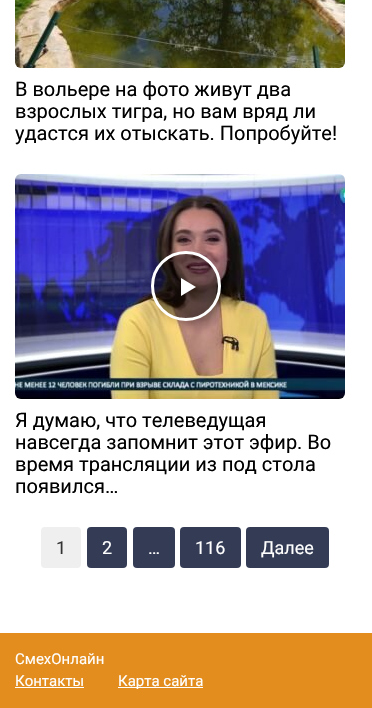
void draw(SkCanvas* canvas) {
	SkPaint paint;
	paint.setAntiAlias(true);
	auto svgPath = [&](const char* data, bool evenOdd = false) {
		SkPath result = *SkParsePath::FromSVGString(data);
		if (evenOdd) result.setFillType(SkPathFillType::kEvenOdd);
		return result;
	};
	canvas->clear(0xffffffff);
	canvas->drawImageRect(SkImages::DeferredFromEncodedData(SkData::MakeFromFileName("img1.png")), SkRect::MakeXYWH(15, 0, 330, 68), SkSamplingOptions());
	SkFont f1(fontMgr->matchFamilyStyle("Roboto", SkFontStyle::Normal()), 20);
	f1.setSubpixel(true);
	paint.setColor(0xff000000);
	canvas->drawString("В вольере на фото живут два", 15, 96, f1, paint);
	canvas->drawString("взрослых тигра, но вам вряд ли", 15, 118, f1, paint);
	canvas->drawString("удастся их отыскать. Попробуйте!", 15, 140, f1, paint);
	canvas->drawImageRect(SkImages::DeferredFromEncodedData(SkData::MakeFromFileName("img2.png")), SkRect::MakeXYWH(15, 174, 330, 225), SkSamplingOptions());
	canvas->save();
	canvas->clipPath(svgPath("M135 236H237V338H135ZM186 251C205.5 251 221 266.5 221 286C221 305.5 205.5 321 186 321C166.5 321 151 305.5 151 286C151 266.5 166.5 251 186 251Z", true), true);
	paint.setColor(0x33000000);
	paint.setMaskFilter(SkMaskFilter::MakeBlur(kNormal_SkBlurStyle, 5));
	canvas->drawRoundRect(SkRect::MakeXYWH(151, 252, 70, 70), 35, 35, paint);
	paint.setMaskFilter(nullptr);
	canvas->restore();
	paint.setColor(0x66000000);
	canvas->drawCircle(186, 286, 33.5, paint);
	paint.setStroke(true);
	paint.setStrokeWidth(3);
	paint.setColor(0xffffffff);
	canvas->drawCircle(186, 286, 33.5, paint);
	paint.setStroke(false);
	canvas->drawPath(svgPath("M181 296V278L196 287Z"), paint);
	paint.setColor(0xff000000);
	canvas->drawString("Я думаю, что телеведущая", 15, 427, f1, paint);
	canvas->drawString("навсегда запомнит этот эфир. Во", 15, 449, f1, paint);
	canvas->drawString("время трансляции из под стола", 15, 471, f1, paint);
	canvas->drawString("появился…", 15, 493, f1, paint);
	paint.setColor(0xffefefef);
	canvas->drawRoundRect(SkRect::MakeXYWH(41, 527, 40, 41), 4, 4, paint);
	SkFont f2(fontMgr->matchFamilyStyle("Roboto", SkFontStyle::Normal()), 18);
	f2.setSubpixel(true);
	paint.setColor(0xff333333);
	canvas->drawString("1", 56, 554, f2, paint);
	paint.setColor(0xff343c55);
	canvas->drawRoundRect(SkRect::MakeXYWH(87, 527, 40, 41), 4, 4, paint);
	paint.setColor(0xffffffff);
	canvas->drawString("2", 102, 554, f2, paint);
	paint.setColor(0xff343c55);
	canvas->drawRoundRect(SkRect::MakeXYWH(133, 527, 42, 41), 4, 4, paint);
	paint.setColor(0xffffffff);
	canvas->drawString("…", 148, 554, f2, paint);
	paint.setColor(0xff343c55);
	canvas->drawRoundRect(SkRect::MakeXYWH(180, 527, 61, 41), 4, 4, paint);
	paint.setColor(0xffffffff);
	canvas->drawString("116", 195, 554, f2, paint);
	paint.setColor(0xff343c55);
	canvas->drawRoundRect(SkRect::MakeXYWH(246, 527, 83, 41), 4, 4, paint);
	paint.setColor(0xffffffff);
	canvas->drawString("Далее", 261, 554, f2, paint);
	paint.setColor(0xffe28d1d);
	canvas->drawRect(SkRect::MakeXYWH(0, 633, 372, 75), paint);
	SkFont f3(fontMgr->matchFamilyStyle("Roboto", SkFontStyle::Normal()), 15);
	f3.setSubpixel(true);
	paint.setColor(0xffffffff);
	canvas->drawString("СмехОнлайн", 15, 664, f3, paint);
	canvas->drawString("Контакты", 15, 686, f3, paint);
	canvas->drawRect(SkRect::MakeXYWH(15, 687, 69, 1), paint);
	canvas->drawRect(SkRect::MakeXYWH(118, 687, 85, 1), paint);
	canvas->drawString("Карта сайта", 118, 686, f3, paint);
}
